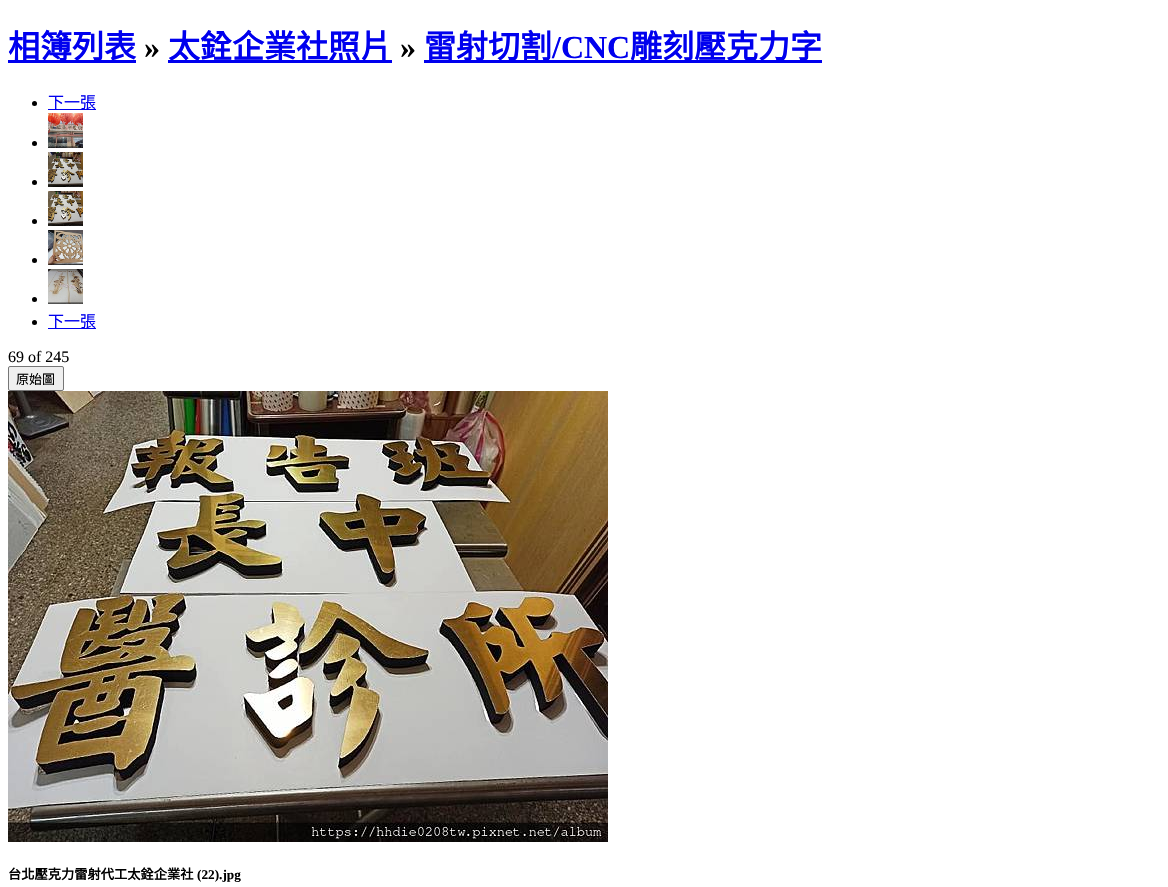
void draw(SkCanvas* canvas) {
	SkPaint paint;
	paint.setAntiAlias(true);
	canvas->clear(0xffffffff);
	paint.setColor(0xff0000ee);
	canvas->drawRect(SkRect::MakeXYWH(8, 60, 128, 3), paint);
	SkFont f1(fontMgr->matchFamilyStyle("Noto Sans CJK TC", SkFontStyle::Bold()), 32);
	f1.setSubpixel(true);
	canvas->drawString("相簿列表", 8, 58, f1, paint);
	SkFont f2(fontMgr->matchFamilyStyle("Liberation Serif", SkFontStyle::Bold()), 32);
	f2.setSubpixel(true);
	paint.setColor(0xff000000);
	canvas->drawString("»", 144, 58, f2, paint);
	paint.setColor(0xff0000ee);
	canvas->drawRect(SkRect::MakeXYWH(168, 60, 224, 3), paint);
	canvas->drawString("太銓企業社照片", 168, 58, f1, paint);
	paint.setColor(0xff000000);
	canvas->drawString("»", 400, 58, f2, paint);
	paint.setColor(0xff0000ee);
	canvas->drawRect(SkRect::MakeXYWH(424, 60, 398, 3), paint);
	canvas->drawString("雷射切割", 424, 58, f1, paint);
	canvas->drawString("/CNC", 552, 58, f2, paint);
	canvas->drawString("雕刻壓克力字", 630, 58, f1, paint);
	paint.setColor(0xff000000);
	canvas->drawCircle(34.5, 103.5, 2.5, paint);
	paint.setColor(0xff0000ee);
	canvas->drawRect(SkRect::MakeXYWH(48, 109, 48, 1), paint);
	SkFont f3(fontMgr->matchFamilyStyle("Noto Sans CJK TC", SkFontStyle::Normal()), 16);
	f3.setSubpixel(true);
	canvas->drawString("下一張", 48, 108, f3, paint);
	paint.setColor(0xff000000);
	canvas->drawCircle(34.5, 143.5, 2.5, paint);
	canvas->drawImageRect(SkImages::DeferredFromEncodedData(SkData::MakeFromFileName("img1.png")), SkRect::MakeXYWH(48, 113, 35, 35), SkSamplingOptions());
	canvas->drawCircle(34.5, 182.5, 2.5, paint);
	canvas->drawImageRect(SkImages::DeferredFromEncodedData(SkData::MakeFromFileName("img2.png")), SkRect::MakeXYWH(48, 152, 35, 35), SkSamplingOptions());
	canvas->drawCircle(34.5, 221.5, 2.5, paint);
	canvas->drawImageRect(SkImages::DeferredFromEncodedData(SkData::MakeFromFileName("img3.png")), SkRect::MakeXYWH(48, 191, 35, 35), SkSamplingOptions());
	canvas->drawCircle(34.5, 260.5, 2.5, paint);
	canvas->drawImageRect(SkImages::DeferredFromEncodedData(SkData::MakeFromFileName("img4.png")), SkRect::MakeXYWH(48, 230, 35, 35), SkSamplingOptions());
	canvas->drawCircle(34.5, 299.5, 2.5, paint);
	canvas->drawImageRect(SkImages::DeferredFromEncodedData(SkData::MakeFromFileName("img5.png")), SkRect::MakeXYWH(48, 269, 35, 35), SkSamplingOptions());
	canvas->drawCircle(34.5, 322.5, 2.5, paint);
	paint.setColor(0xff0000ee);
	canvas->drawRect(SkRect::MakeXYWH(48, 328, 48, 1), paint);
	canvas->drawString("下一張", 48, 327, f3, paint);
	SkFont f4(fontMgr->matchFamilyStyle("Liberation Serif", SkFontStyle::Normal()), 16);
	f4.setSubpixel(true);
	paint.setColor(0xff000000);
	canvas->drawString("69 of 245", 8, 362, f4, paint);
	paint.setColor(0xffefefef);
	canvas->drawRoundRect(SkRect::MakeXYWH(8.5, 366.5, 55, 24), 1.5, 1.5, paint);
	paint.setStroke(true);
	paint.setStrokeWidth(1);
	paint.setColor(0xff767676);
	canvas->drawRoundRect(SkRect::MakeXYWH(8.5, 366.5, 55, 24), 1.5, 1.5, paint);
	SkFont f5(fontMgr->matchFamilyStyle("Noto Sans CJK TC", SkFontStyle::Normal()), 13);
	f5.setSubpixel(true);
	paint.setStroke(false);
	paint.setColor(0xff000000);
	canvas->drawString("原始圖", 16, 384, f5, paint);
	canvas->drawImageRect(SkImages::DeferredFromEncodedData(SkData::MakeFromFileName("img6.png")), SkRect::MakeXYWH(8, 391, 600, 451), SkSamplingOptions());
	SkFont f6(fontMgr->matchFamilyStyle("Noto Sans CJK TC", SkFontStyle::Bold()), 13.25);
	f6.setSubpixel(true);
	canvas->drawString("台北壓克力雷射代工太銓企業社", 8, 879, f6, paint);
	SkFont f7(fontMgr->matchFamilyStyle("Liberation Serif", SkFontStyle::Bold()), 13.25);
	f7.setSubpixel(true);
	canvas->drawString("(22).jpg", 197, 879, f7, paint);
}
